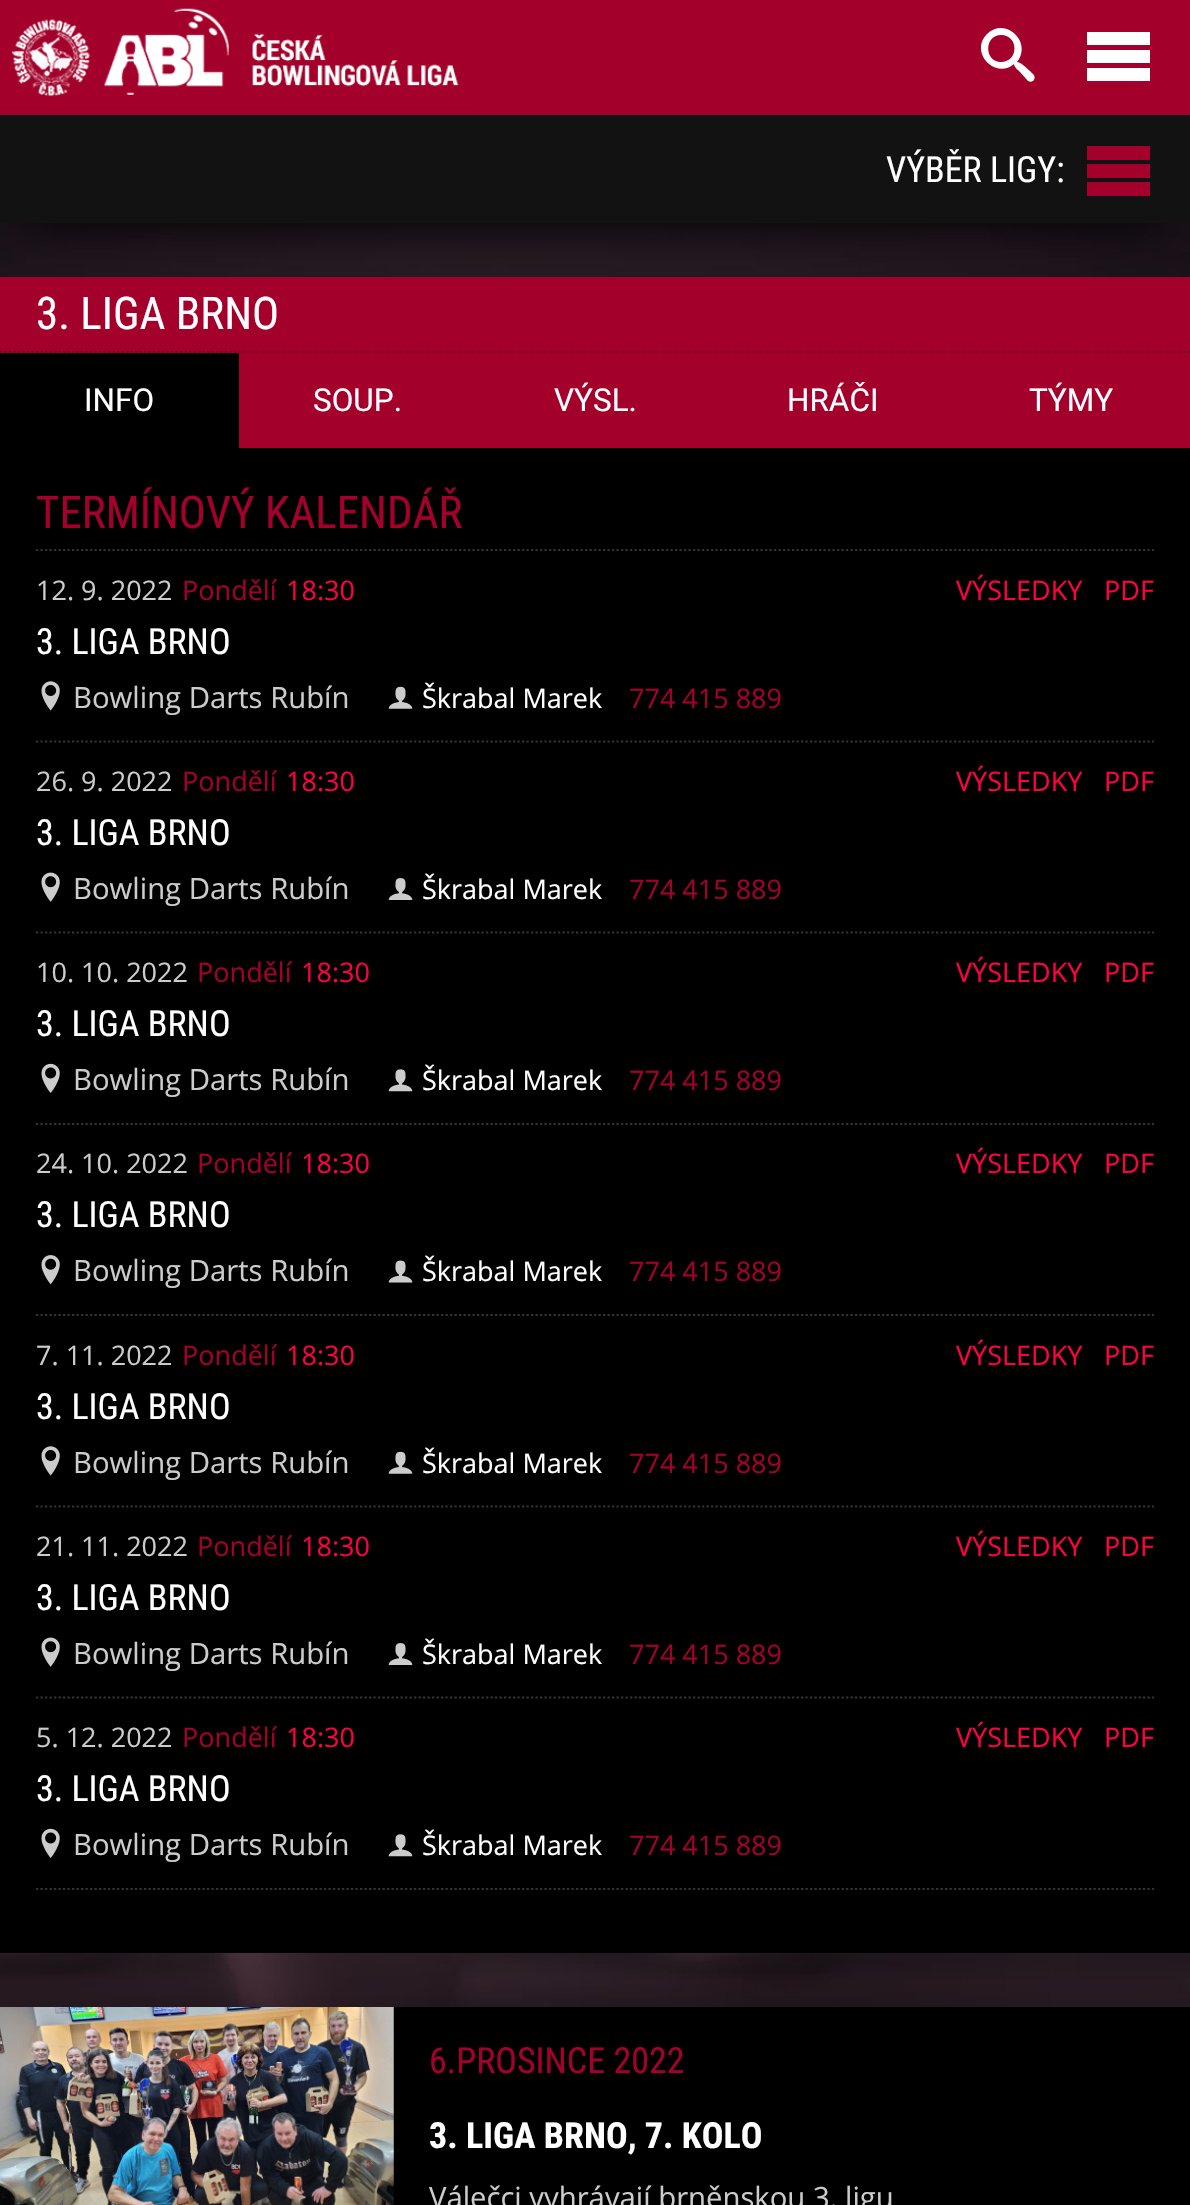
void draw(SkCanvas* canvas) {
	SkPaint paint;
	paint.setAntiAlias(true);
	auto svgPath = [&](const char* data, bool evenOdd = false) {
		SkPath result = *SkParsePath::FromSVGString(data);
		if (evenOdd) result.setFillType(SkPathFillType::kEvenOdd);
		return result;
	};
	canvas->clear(0xffa3012b);
	canvas->drawImageRect(SkImages::DeferredFromEncodedData(SkData::MakeFromFileName("img1.png")), SkRect::MakeXYWH(0, 8, 472, 100), SkSamplingOptions());
	paint.setColor(0xffffffff);
	canvas->drawPath(svgPath("M1033 74C1031 72 1020 61 1017 62C1033 42 1005 16 987 34C969 52 995 80 1014 64C1014 67 1018 70 1020 72L1028 81C1033 84 1037 78 1033 74ZM1001 62C984 62 984 35 1001 35C1019 35 1019 62 1001 62Z"), paint);
	canvas->drawPath(svgPath("M1087 32H1150V45H1087ZM1087 50H1150V63H1087ZM1087 68H1150V81H1087Z"), paint);
	canvas->drawImageRect(SkImages::DeferredFromEncodedData(SkData::MakeFromFileName("img2.png")), SkRect::MakeXYWH(0, 223, 1190, 1784), SkSamplingOptions());
	paint.setColor(0xffa3012b);
	canvas->drawRect(SkRect::MakeXYWH(0, 277, 1190, 74), paint);
	paint.setColor(0xe6000000);
	paint.setMaskFilter(SkMaskFilter::MakeBlur(kNormal_SkBlurStyle, 18));
	canvas->drawRect(SkRect::MakeXYWH(36, 187, 1118, 36), paint);
	paint.setMaskFilter(nullptr);
	paint.setColor(0xff121212);
	canvas->drawRect(SkRect::MakeXYWH(0, 115, 1190, 108), paint);
	SkFont f1(fontMgr->matchFamilyStyle("Roboto Condensed", SkFontStyle::Normal()), 36);
	f1.setSubpixel(true);
	paint.setColor(0xffffffff);
	canvas->drawString("VÝBĚR LIGY:", 886, 182, f1, paint);
	paint.setColor(0xffa3012b);
	canvas->drawPath(svgPath("M1087 146H1150V160H1087ZM1087 164H1150V178H1087ZM1087 182H1150V196H1087Z"), paint);
	SkFont f2(fontMgr->matchFamilyStyle("Roboto Condensed", SkFontStyle::Normal()), 45);
	f2.setSubpixel(true);
	paint.setColor(0xffffffff);
	canvas->drawString("3. LIGA BRNO", 36, 329, f2, paint);
	paint.setColor(0xffa3012b);
	canvas->drawRect(SkRect::MakeXYWH(2, 351, 1188, 97), paint);
	paint.setStroke(true);
	paint.setStrokeWidth(2.2);
	paint.setColor(0xff7a0120);
	paint.setPathEffect(SkDashPathEffect::Make({{2.25f, 2.25f}}, 0));
	canvas->drawPath(svgPath("M0 352H1190"), paint);
	paint.setPathEffect(nullptr);
	paint.setStroke(false);
	paint.setColor(0xff000000);
	canvas->drawRect(SkRect::MakeXYWH(0, 353, 239, 95), paint);
	SkFont f3(fontMgr->matchFamilyStyle("Roboto", SkFontStyle::Normal()), 31.5);
	f3.setSubpixel(true);
	paint.setColor(0xffffffff);
	canvas->drawString("INFO", 84, 411, f3, paint);
	canvas->drawString("SOUP.", 313, 411, f3, paint);
	canvas->drawString("VÝSL.", 554, 411, f3, paint);
	canvas->drawString("HRÁČI", 787, 411, f3, paint);
	canvas->drawString("TÝMY", 1029, 411, f3, paint);
	paint.setColor(0xff000000);
	canvas->drawRect(SkRect::MakeXYWH(0, 448, 1190, 1505), paint);
	paint.setColor(0xffa3012b);
	canvas->drawString("TERMÍNOVÝ KALENDÁŘ", 36, 528, f2, paint);
	paint.setStroke(true);
	paint.setColor(0xff333333);
	paint.setPathEffect(SkDashPathEffect::Make({{2.25f, 2.25f}}, 0));
	canvas->drawPath(svgPath("M36 550H1154"), paint);
	paint.setPathEffect(nullptr);
	SkFont f4(fontMgr->matchFamilyStyle("Open Sans", SkFontStyle::Normal()), 27);
	f4.setSubpixel(true);
	paint.setStroke(false);
	paint.setColor(0xffcccccc);
	canvas->drawString("12. 9. 2022", 36, 600, f4, paint);
	paint.setColor(0xffa3012b);
	canvas->drawString("Pondělí", 182, 600, f4, paint);
	paint.setColor(0xfffe0140);
	canvas->drawString("18:30", 286, 600, f4, paint);
	canvas->drawString("VÝSLEDKY", 956, 600, f4, paint);
	canvas->drawString("PDF", 1104, 600, f4, paint);
	paint.setColor(0xffffffff);
	canvas->drawString("3. LIGA BRNO", 36, 654, f1, paint);
	canvas->drawImageRect(SkImages::DeferredFromEncodedData(SkData::MakeFromFileName("img3.png")), SkRect::MakeXYWH(41, 681, 19, 30), SkSamplingOptions());
	SkFont f5(fontMgr->matchFamilyStyle("Open Sans", SkFontStyle::Normal()), 29.25);
	f5.setSubpixel(true);
	paint.setColor(0xffcccccc);
	canvas->drawString("Bowling Darts Rubín", 73, 708, f5, paint);
	canvas->drawImageRect(SkImages::DeferredFromEncodedData(SkData::MakeFromFileName("img4.png")), SkRect::MakeXYWH(388, 686, 25, 23), SkSamplingOptions());
	paint.setColor(0xffffffff);
	canvas->drawString("Škrabal Marek", 422, 708, f4, paint);
	paint.setColor(0xffa3012b);
	canvas->drawString("774 415 889", 629, 708, f4, paint);
	paint.setStroke(true);
	paint.setColor(0xff333333);
	paint.setPathEffect(SkDashPathEffect::Make({{2.25f, 2.25f}}, 0));
	canvas->drawPath(svgPath("M36 741.5H1154"), paint);
	paint.setPathEffect(nullptr);
	paint.setStroke(false);
	paint.setColor(0xffcccccc);
	canvas->drawString("26. 9. 2022", 36, 791, f4, paint);
	paint.setColor(0xffa3012b);
	canvas->drawString("Pondělí", 182, 791, f4, paint);
	paint.setColor(0xfffe0140);
	canvas->drawString("18:30", 286, 791, f4, paint);
	canvas->drawString("VÝSLEDKY", 956, 791, f4, paint);
	canvas->drawString("PDF", 1104, 791, f4, paint);
	paint.setColor(0xffffffff);
	canvas->drawString("3. LIGA BRNO", 36, 845, f1, paint);
	canvas->drawImageRect(SkImages::DeferredFromEncodedData(SkData::MakeFromFileName("img5.png")), SkRect::MakeXYWH(41, 872, 19, 30), SkSamplingOptions());
	paint.setColor(0xffcccccc);
	canvas->drawString("Bowling Darts Rubín", 73, 899, f5, paint);
	canvas->drawImageRect(SkImages::DeferredFromEncodedData(SkData::MakeFromFileName("img6.png")), SkRect::MakeXYWH(388, 878, 25, 22), SkSamplingOptions());
	paint.setColor(0xffffffff);
	canvas->drawString("Škrabal Marek", 422, 899, f4, paint);
	paint.setColor(0xffa3012b);
	canvas->drawString("774 415 889", 629, 899, f4, paint);
	paint.setStroke(true);
	paint.setColor(0xff333333);
	paint.setPathEffect(SkDashPathEffect::Make({{2.25f, 2.25f}}, 0));
	canvas->drawPath(svgPath("M36 932.5H1154"), paint);
	paint.setPathEffect(nullptr);
	paint.setStroke(false);
	paint.setColor(0xffcccccc);
	canvas->drawString("10. 10. 2022", 36, 982, f4, paint);
	paint.setColor(0xffa3012b);
	canvas->drawString("Pondělí", 197, 982, f4, paint);
	paint.setColor(0xfffe0140);
	canvas->drawString("18:30", 301, 982, f4, paint);
	canvas->drawString("VÝSLEDKY", 956, 982, f4, paint);
	canvas->drawString("PDF", 1104, 982, f4, paint);
	paint.setColor(0xffffffff);
	canvas->drawString("3. LIGA BRNO", 36, 1036, f1, paint);
	canvas->drawImageRect(SkImages::DeferredFromEncodedData(SkData::MakeFromFileName("img7.png")), SkRect::MakeXYWH(41, 1063, 19, 30), SkSamplingOptions());
	paint.setColor(0xffcccccc);
	canvas->drawString("Bowling Darts Rubín", 73, 1090, f5, paint);
	canvas->drawImageRect(SkImages::DeferredFromEncodedData(SkData::MakeFromFileName("img8.png")), SkRect::MakeXYWH(388, 1069, 25, 23), SkSamplingOptions());
	paint.setColor(0xffffffff);
	canvas->drawString("Škrabal Marek", 422, 1090, f4, paint);
	paint.setColor(0xffa3012b);
	canvas->drawString("774 415 889", 629, 1090, f4, paint);
	paint.setStroke(true);
	paint.setColor(0xff333333);
	paint.setPathEffect(SkDashPathEffect::Make({{2.25f, 2.25f}}, 0));
	canvas->drawPath(svgPath("M36 1124H1154"), paint);
	paint.setPathEffect(nullptr);
	paint.setStroke(false);
	paint.setColor(0xffcccccc);
	canvas->drawString("24. 10. 2022", 36, 1173, f4, paint);
	paint.setColor(0xffa3012b);
	canvas->drawString("Pondělí", 197, 1173, f4, paint);
	paint.setColor(0xfffe0140);
	canvas->drawString("18:30", 301, 1173, f4, paint);
	canvas->drawString("VÝSLEDKY", 956, 1173, f4, paint);
	canvas->drawString("PDF", 1104, 1173, f4, paint);
	paint.setColor(0xffffffff);
	canvas->drawString("3. LIGA BRNO", 36, 1227, f1, paint);
	canvas->drawImageRect(SkImages::DeferredFromEncodedData(SkData::MakeFromFileName("img9.png")), SkRect::MakeXYWH(41, 1255, 19, 30), SkSamplingOptions());
	paint.setColor(0xffcccccc);
	canvas->drawString("Bowling Darts Rubín", 73, 1281, f5, paint);
	canvas->drawImageRect(SkImages::DeferredFromEncodedData(SkData::MakeFromFileName("img10.png")), SkRect::MakeXYWH(388, 1260, 25, 23), SkSamplingOptions());
	paint.setColor(0xffffffff);
	canvas->drawString("Škrabal Marek", 422, 1281, f4, paint);
	paint.setColor(0xffa3012b);
	canvas->drawString("774 415 889", 629, 1281, f4, paint);
	paint.setStroke(true);
	paint.setColor(0xff333333);
	paint.setPathEffect(SkDashPathEffect::Make({{2.25f, 2.25f}}, 0));
	canvas->drawPath(svgPath("M36 1315H1154"), paint);
	paint.setPathEffect(nullptr);
	paint.setStroke(false);
	paint.setColor(0xffcccccc);
	canvas->drawString("7. 11. 2022", 36, 1365, f4, paint);
	paint.setColor(0xffa3012b);
	canvas->drawString("Pondělí", 182, 1365, f4, paint);
	paint.setColor(0xfffe0140);
	canvas->drawString("18:30", 286, 1365, f4, paint);
	canvas->drawString("VÝSLEDKY", 956, 1365, f4, paint);
	canvas->drawString("PDF", 1104, 1365, f4, paint);
	paint.setColor(0xffffffff);
	canvas->drawString("3. LIGA BRNO", 36, 1419, f1, paint);
	canvas->drawImageRect(SkImages::DeferredFromEncodedData(SkData::MakeFromFileName("img3.png")), SkRect::MakeXYWH(41, 1446, 19, 30), SkSamplingOptions());
	paint.setColor(0xffcccccc);
	canvas->drawString("Bowling Darts Rubín", 73, 1473, f5, paint);
	canvas->drawImageRect(SkImages::DeferredFromEncodedData(SkData::MakeFromFileName("img4.png")), SkRect::MakeXYWH(388, 1451, 25, 23), SkSamplingOptions());
	paint.setColor(0xffffffff);
	canvas->drawString("Škrabal Marek", 422, 1473, f4, paint);
	paint.setColor(0xffa3012b);
	canvas->drawString("774 415 889", 629, 1473, f4, paint);
	paint.setStroke(true);
	paint.setColor(0xff333333);
	paint.setPathEffect(SkDashPathEffect::Make({{2.25f, 2.25f}}, 0));
	canvas->drawPath(svgPath("M36 1506.5H1154"), paint);
	paint.setPathEffect(nullptr);
	paint.setStroke(false);
	paint.setColor(0xffcccccc);
	canvas->drawString("21. 11. 2022", 36, 1556, f4, paint);
	paint.setColor(0xffa3012b);
	canvas->drawString("Pondělí", 197, 1556, f4, paint);
	paint.setColor(0xfffe0140);
	canvas->drawString("18:30", 301, 1556, f4, paint);
	canvas->drawString("VÝSLEDKY", 956, 1556, f4, paint);
	canvas->drawString("PDF", 1104, 1556, f4, paint);
	paint.setColor(0xffffffff);
	canvas->drawString("3. LIGA BRNO", 36, 1610, f1, paint);
	canvas->drawImageRect(SkImages::DeferredFromEncodedData(SkData::MakeFromFileName("img5.png")), SkRect::MakeXYWH(41, 1637, 19, 30), SkSamplingOptions());
	paint.setColor(0xffcccccc);
	canvas->drawString("Bowling Darts Rubín", 73, 1664, f5, paint);
	canvas->drawImageRect(SkImages::DeferredFromEncodedData(SkData::MakeFromFileName("img6.png")), SkRect::MakeXYWH(388, 1643, 25, 22), SkSamplingOptions());
	paint.setColor(0xffffffff);
	canvas->drawString("Škrabal Marek", 422, 1664, f4, paint);
	paint.setColor(0xffa3012b);
	canvas->drawString("774 415 889", 629, 1664, f4, paint);
	paint.setStroke(true);
	paint.setColor(0xff333333);
	paint.setPathEffect(SkDashPathEffect::Make({{2.25f, 2.25f}}, 0));
	canvas->drawPath(svgPath("M36 1697.5H1154"), paint);
	paint.setPathEffect(nullptr);
	paint.setPathEffect(SkDashPathEffect::Make({{2.25f, 2.25f}}, 0));
	canvas->drawPath(svgPath("M36 1889H1154"), paint);
	paint.setPathEffect(nullptr);
	paint.setStroke(false);
	paint.setColor(0xffcccccc);
	canvas->drawString("5. 12. 2022", 36, 1747, f4, paint);
	paint.setColor(0xffa3012b);
	canvas->drawString("Pondělí", 182, 1747, f4, paint);
	paint.setColor(0xfffe0140);
	canvas->drawString("18:30", 286, 1747, f4, paint);
	canvas->drawString("VÝSLEDKY", 956, 1747, f4, paint);
	canvas->drawString("PDF", 1104, 1747, f4, paint);
	paint.setColor(0xffffffff);
	canvas->drawString("3. LIGA BRNO", 36, 1801, f1, paint);
	canvas->drawImageRect(SkImages::DeferredFromEncodedData(SkData::MakeFromFileName("img7.png")), SkRect::MakeXYWH(41, 1828, 19, 30), SkSamplingOptions());
	paint.setColor(0xffcccccc);
	canvas->drawString("Bowling Darts Rubín", 73, 1855, f5, paint);
	canvas->drawImageRect(SkImages::DeferredFromEncodedData(SkData::MakeFromFileName("img8.png")), SkRect::MakeXYWH(388, 1834, 25, 23), SkSamplingOptions());
	paint.setColor(0xffffffff);
	canvas->drawString("Škrabal Marek", 422, 1855, f4, paint);
	paint.setColor(0xffa3012b);
	canvas->drawString("774 415 889", 629, 1855, f4, paint);
	paint.setColor(0xff000000);
	canvas->drawRect(SkRect::MakeXYWH(393, 2007, 797, 198), paint);
	canvas->drawImageRect(SkImages::DeferredFromEncodedData(SkData::MakeFromFileName("img11.png")), SkRect::MakeXYWH(0, 2007, 394, 198), SkSamplingOptions());
	paint.setColor(0xffa3012b);
	canvas->drawString("6.PROSINCE 2022", 429, 2073, f1, paint);
	SkFont f6(fontMgr->matchFamilyStyle("Roboto Condensed", SkFontStyle::Bold()), 36);
	f6.setSubpixel(true);
	paint.setColor(0xffffffff);
	canvas->drawString("3. LIGA BRNO, 7. KOLO", 429, 2148, f6, paint);
	paint.setColor(0xffcccccc);
	canvas->drawString("Válečci vyhrávají brněnskou 3. ligu", 429, 2208, f5, paint);
}
